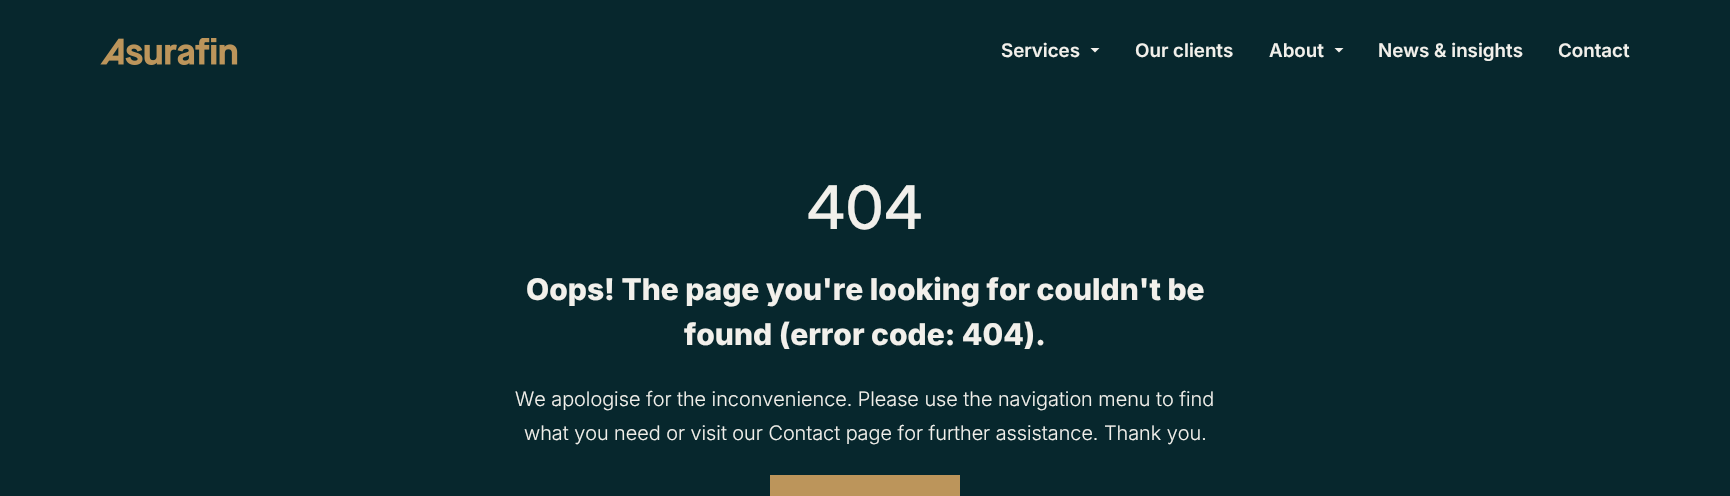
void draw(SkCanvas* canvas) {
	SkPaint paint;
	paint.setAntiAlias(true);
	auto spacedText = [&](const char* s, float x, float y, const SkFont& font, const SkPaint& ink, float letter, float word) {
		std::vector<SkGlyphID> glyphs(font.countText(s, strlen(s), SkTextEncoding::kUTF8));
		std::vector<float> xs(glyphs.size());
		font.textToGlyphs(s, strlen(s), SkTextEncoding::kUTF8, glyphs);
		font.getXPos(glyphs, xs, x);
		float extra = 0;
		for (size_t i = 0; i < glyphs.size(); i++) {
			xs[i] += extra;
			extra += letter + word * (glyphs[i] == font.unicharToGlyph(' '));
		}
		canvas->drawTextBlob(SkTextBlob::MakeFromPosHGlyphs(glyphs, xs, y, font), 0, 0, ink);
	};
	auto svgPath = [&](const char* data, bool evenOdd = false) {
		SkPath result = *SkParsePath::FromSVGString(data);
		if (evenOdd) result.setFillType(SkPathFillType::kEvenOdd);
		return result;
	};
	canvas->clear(0xff07272d);
	canvas->drawImageRect(SkImages::DeferredFromEncodedData(SkData::MakeFromFileName("img1.png")), SkRect::MakeXYWH(100, 38, 138, 27), SkSamplingOptions());
	SkFont f1(fontMgr->matchFamilyStyle("Inter", SkFontStyle(600, SkFontStyle::kNormal_Width, SkFontStyle::kUpright_Slant)), 18.75);
	f1.setSubpixel(true);
	paint.setColor(0xfff2f0eb);
	canvas->drawString("Services", 1001, 57, f1, paint);
	canvas->save();
	canvas->clipRect(SkRect::MakeXYWH(1090, 48, 10, 5));
	canvas->drawPath(svgPath("M1095 52.5L1100 47.5H1090Z"), paint);
	canvas->restore();
	canvas->drawString("Our clients", 1135, 57, f1, paint);
	canvas->drawString("About", 1269, 57, f1, paint);
	canvas->save();
	canvas->clipRect(SkRect::MakeXYWH(1334, 48, 10, 5));
	canvas->drawPath(svgPath("M1339 52.5L1344 47.5H1334Z"), paint);
	canvas->restore();
	canvas->drawString("News & insights", 1378, 57, f1, paint);
	canvas->drawString("Contact", 1558, 57, f1, paint);
	SkFont f2(fontMgr->matchFamilyStyle("Inter", SkFontStyle(500, SkFontStyle::kNormal_Width, SkFontStyle::kUpright_Slant)), 60);
	f2.setSubpixel(true);
	spacedText("404", 807, 229, f2, paint, 1, 0);
	SkFont f3(fontMgr->matchFamilyStyle("Inter", SkFontStyle(800, SkFontStyle::kNormal_Width, SkFontStyle::kUpright_Slant)), 30);
	f3.setSubpixel(true);
	canvas->drawString("Oops! The page you're looking for couldn't be", 526, 300, f3, paint);
	canvas->drawString("found (error code: 404).", 684, 345, f3, paint);
	SkFont f4(fontMgr->matchFamilyStyle("Inter", SkFontStyle(300, SkFontStyle::kNormal_Width, SkFontStyle::kUpright_Slant)), 20);
	f4.setSubpixel(true);
	canvas->drawString("We apologise for the inconvenience. Please use the navigation menu to find", 515, 406, f4, paint);
	canvas->drawString("what you need or visit our Contact page for further assistance. Thank you.", 524, 440, f4, paint);
	paint.setColor(0xffbc955b);
	canvas->drawRect(SkRect::MakeXYWH(770, 475, 190, 21), paint);
}
